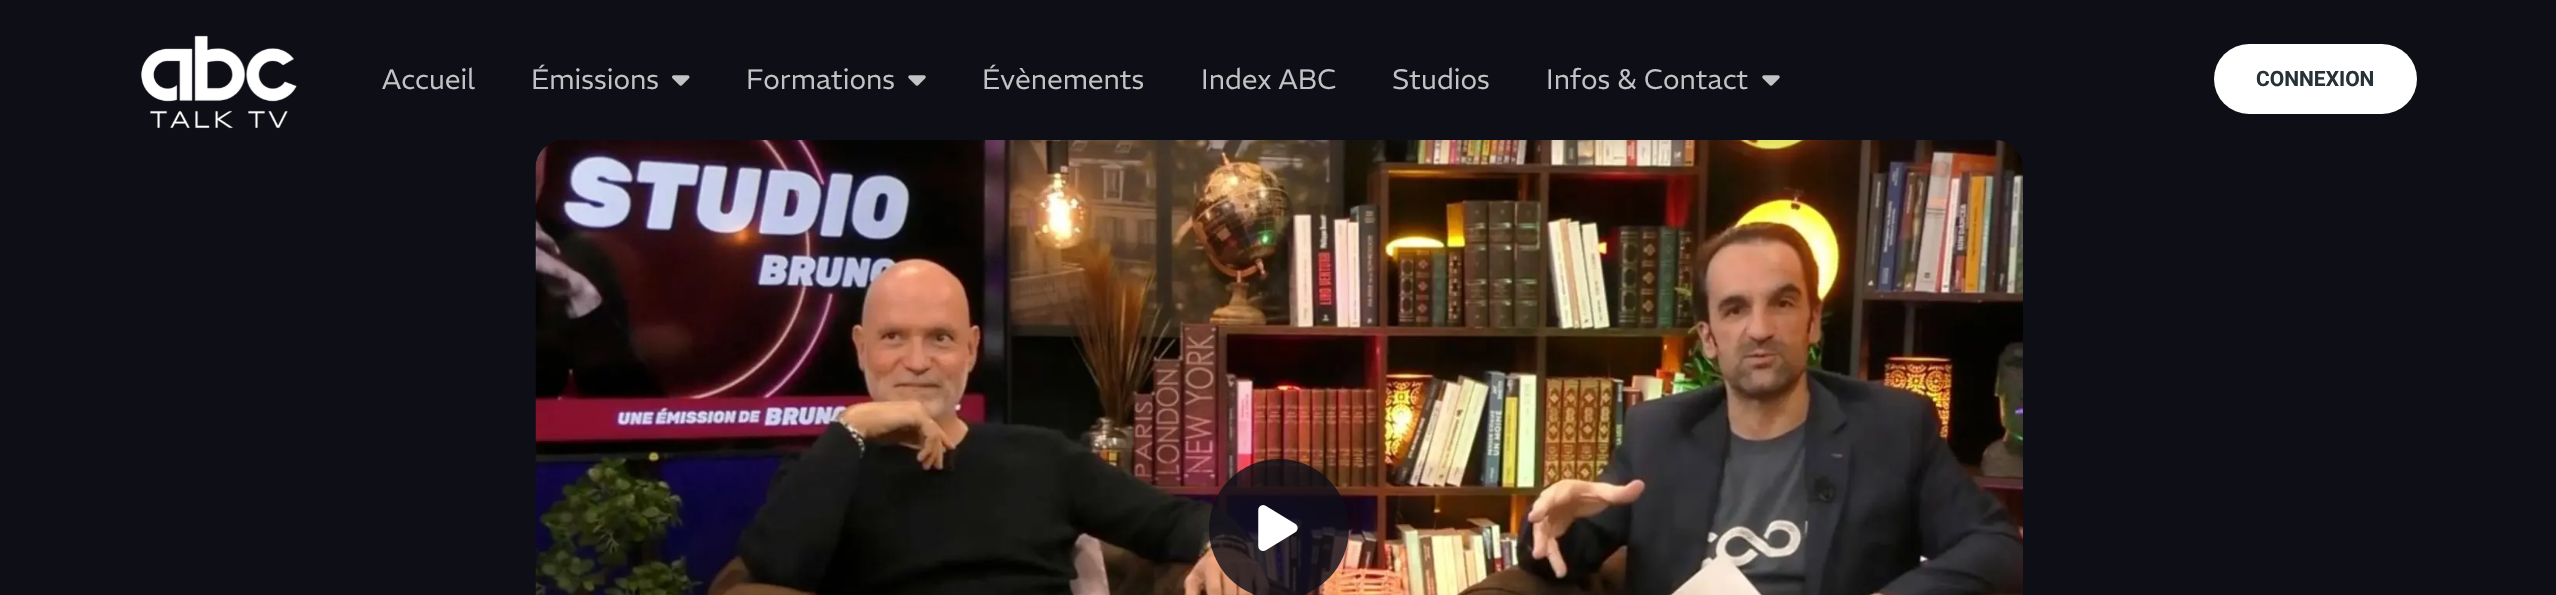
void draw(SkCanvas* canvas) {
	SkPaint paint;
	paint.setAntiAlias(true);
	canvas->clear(0xff0e0e16);
	canvas->drawImageRect(SkImages::DeferredFromEncodedData(SkData::MakeFromFileName("img4.png")), SkRect::MakeXYWH(535, 140, 1488, 455), SkSamplingOptions());
	{
		const SkColor colors[] = {0xff0e0e16, 0x000e0e16};
		const float stops[] = {0, 1};
		const SkPoint ends[] = {{1278, 0}, {1278, 158}};
		paint.setShader(SkGradientShader::MakeLinear(ends, colors, stops, 2, SkTileMode::kClamp));
		paint.setAlpha(255);
	}
	canvas->drawRect(SkRect::MakeXYWH(540, 140, 1465, 15), paint);
	canvas->drawImageRect(SkImages::DeferredFromEncodedData(SkData::MakeFromFileName("img1.png")), SkRect::MakeXYWH(141, 35, 156, 94), SkSamplingOptions());
	SkFont f1(fontMgr->matchFamilyStyle("REM", SkFontStyle(300, SkFontStyle::kNormal_Width, SkFontStyle::kUpright_Slant)), 28);
	f1.setSubpixel(true);
	paint.setShader(nullptr);
	paint.setColor(0xffc3c3c5);
	canvas->drawString("Accueil", 382, 89, f1, paint);
	canvas->drawString("Émissions", 531, 89, f1, paint);
	canvas->drawImageRect(SkImages::DeferredFromEncodedData(SkData::MakeFromFileName("img2.png")), SkRect::MakeXYWH(672, 75, 18, 11), SkSamplingOptions());
	canvas->drawString("Formations", 746, 89, f1, paint);
	canvas->drawImageRect(SkImages::DeferredFromEncodedData(SkData::MakeFromFileName("img3.png")), SkRect::MakeXYWH(908, 75, 18, 11), SkSamplingOptions());
	canvas->drawString("Évènements", 982, 89, f1, paint);
	canvas->drawString("Index ABC", 1201, 89, f1, paint);
	canvas->drawString("Studios", 1392, 89, f1, paint);
	canvas->drawString("Infos & Contact", 1546, 89, f1, paint);
	canvas->drawImageRect(SkImages::DeferredFromEncodedData(SkData::MakeFromFileName("img3.png")), SkRect::MakeXYWH(1762, 75, 18, 11), SkSamplingOptions());
	paint.setColor(0xffffffff);
	canvas->drawRoundRect(SkRect::MakeXYWH(2214, 44, 203, 70), 35, 35, paint);
	SkFont f2(fontMgr->matchFamilyStyle("Roboto", SkFontStyle::Bold()), 21);
	f2.setSubpixel(true);
	paint.setColor(0xff263238);
	canvas->drawString("CONNEXION", 2256, 86, f2, paint);
	paint.setColor(0xcc0e0e16);
	canvas->drawCircle(1279, 529, 70, paint);
	canvas->drawImageRect(SkImages::DeferredFromEncodedData(SkData::MakeFromFileName("img5.png")), SkRect::MakeXYWH(1258, 505, 40, 46), SkSamplingOptions());
}
